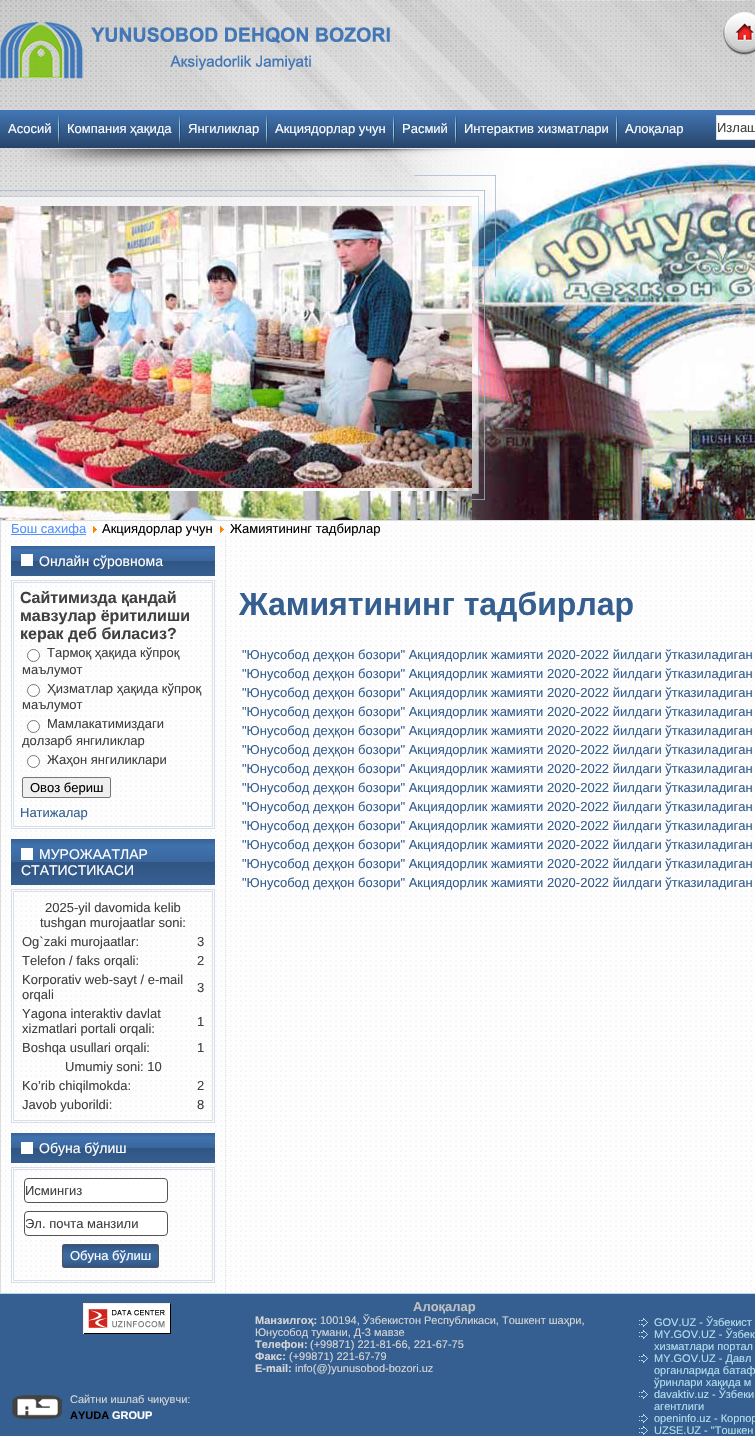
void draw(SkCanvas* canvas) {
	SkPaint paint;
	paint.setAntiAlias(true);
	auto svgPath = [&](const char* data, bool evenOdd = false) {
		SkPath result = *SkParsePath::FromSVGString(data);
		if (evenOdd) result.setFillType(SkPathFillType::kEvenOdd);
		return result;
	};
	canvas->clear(0xffffffff);
	canvas->drawImageRect(SkImages::DeferredFromEncodedData(SkData::MakeFromFileName("img1.png")), SkRect::MakeXYWH(0, 0, 755, 1293), SkSamplingOptions());
	canvas->drawImageRect(SkImages::DeferredFromEncodedData(SkData::MakeFromFileName("img2.png")), SkRect::MakeXYWH(0, 22, 390, 66), SkSamplingOptions());
	canvas->drawImageRect(SkImages::DeferredFromEncodedData(SkData::MakeFromFileName("img3.png")), SkRect::MakeXYWH(723, 12, 32, 43), SkSamplingOptions());
	canvas->drawImageRect(SkImages::DeferredFromEncodedData(SkData::MakeFromFileName("img4.png")), SkRect::MakeXYWH(24, 149, 499, 18), SkSamplingOptions());
	canvas->drawImageRect(SkImages::DeferredFromEncodedData(SkData::MakeFromFileName("img5.png")), SkRect::MakeXYWH(369, 148, 386, 372), SkSamplingOptions());
	canvas->drawImageRect(SkImages::DeferredFromEncodedData(SkData::MakeFromFileName("img6.png")), SkRect::MakeXYWH(0, 175, 496, 325), SkSamplingOptions());
	canvas->drawImageRect(SkImages::DeferredFromEncodedData(SkData::MakeFromFileName("img7.png")), SkRect::MakeXYWH(0, 206, 472, 282), SkSamplingOptions());
	canvas->drawImageRect(SkImages::DeferredFromEncodedData(SkData::MakeFromFileName("img8.png")), SkRect::MakeXYWH(0, 491, 472, 29), SkSamplingOptions());
	{
		const SkColor colors[] = {0xff4377b6, 0xff274468};
		const float stops[] = {0, 1};
		const SkPoint ends[] = {{510, 110}, {510, 148}};
		paint.setShader(SkGradientShader::MakeLinear(ends, colors, stops, 2, SkTileMode::kClamp));
		paint.setAlpha(255);
	}
	canvas->drawRect(SkRect::MakeXYWH(0, 110, 755, 38), paint);
	SkFont f1(fontMgr->matchFamilyStyle("Liberation Sans", SkFontStyle::Normal()), 13);
	f1.setSubpixel(true);
	paint.setShader(nullptr);
	paint.setColor(0xffffffff);
	canvas->drawString("Асосий", 8, 133, f1, paint);
	canvas->drawImageRect(SkImages::DeferredFromEncodedData(SkData::MakeFromFileName("img9.png")), SkRect::MakeXYWH(58, 115, 2, 29), SkSamplingOptions());
	canvas->drawString("Компания ҳақида", 67, 133, f1, paint);
	canvas->drawImageRect(SkImages::DeferredFromEncodedData(SkData::MakeFromFileName("img9.png")), SkRect::MakeXYWH(179, 115, 2, 29), SkSamplingOptions());
	canvas->drawString("Янгиликлар", 188, 133, f1, paint);
	canvas->drawImageRect(SkImages::DeferredFromEncodedData(SkData::MakeFromFileName("img9.png")), SkRect::MakeXYWH(266, 115, 2, 29), SkSamplingOptions());
	canvas->drawString("Акциядорлар учун", 275, 133, f1, paint);
	canvas->drawImageRect(SkImages::DeferredFromEncodedData(SkData::MakeFromFileName("img9.png")), SkRect::MakeXYWH(393, 115, 2, 29), SkSamplingOptions());
	canvas->drawString("Расмий", 402, 133, f1, paint);
	canvas->drawImageRect(SkImages::DeferredFromEncodedData(SkData::MakeFromFileName("img9.png")), SkRect::MakeXYWH(455, 115, 2, 29), SkSamplingOptions());
	canvas->drawString("Интерактив хизматлари", 464, 133, f1, paint);
	canvas->drawImageRect(SkImages::DeferredFromEncodedData(SkData::MakeFromFileName("img9.png")), SkRect::MakeXYWH(616, 115, 2, 29), SkSamplingOptions());
	canvas->drawString("Алоқалар", 625, 133, f1, paint);
	canvas->drawRect(SkRect::MakeXYWH(716.5, 115.5, 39, 24), paint);
	paint.setStroke(true);
	paint.setStrokeWidth(1);
	paint.setColor(0xffdedede);
	canvas->drawRect(SkRect::MakeXYWH(716.5, 115.5, 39, 24), paint);
	paint.setStroke(false);
	paint.setColor(0xff404040);
	canvas->drawString("Излаш", 717, 132, f1, paint);
	paint.setColor(0x66ffffff);
	canvas->drawRect(SkRect::MakeXYWH(1, 521, 753, 771), paint);
	paint.setColor(0xffdedede);
	canvas->drawRect(SkRect::MakeXYWH(0, 520, 755, 1), paint);
	canvas->drawRect(SkRect::MakeXYWH(0, 520, 1, 773), paint);
	paint.setColor(0xff5293ff);
	canvas->drawRect(SkRect::MakeXYWH(11, 534, 75, 1), paint);
	canvas->drawString("Бош сахифа", 11, 533, f1, paint);
	canvas->drawImageRect(SkImages::DeferredFromEncodedData(SkData::MakeFromFileName("img10.png")), SkRect::MakeXYWH(93, 526, 4, 7), SkSamplingOptions());
	paint.setColor(0xff000000);
	canvas->drawString("Акциядорлар учун", 102, 533, f1, paint);
	canvas->drawImageRect(SkImages::DeferredFromEncodedData(SkData::MakeFromFileName("img11.png")), SkRect::MakeXYWH(220, 526, 4, 7), SkSamplingOptions());
	canvas->drawString("Жамиятининг тадбирлар", 230, 533, f1, paint);
	paint.setStroke(true);
	paint.setColor(0xffd7dfea);
	paint.setPathEffect(SkDashPathEffect::Make({{1, 1}}, 0));
	canvas->drawPath(svgPath("M225.5 536V1293"), paint);
	paint.setPathEffect(nullptr);
	paint.setStroke(false);
	{
		const SkColor colors[] = {0xff376195, 0xff4172af, 0xff3a669c, 0xff305582, 0xff365f91};
		const float stops[] = {0, 0.15, 0.5, 0.5, 1};
		const SkPoint ends[] = {{113, 546}, {113, 576}};
		paint.setShader(SkGradientShader::MakeLinear(ends, colors, stops, 5, SkTileMode::kClamp));
		paint.setAlpha(255);
	}
	canvas->drawRect(SkRect::MakeXYWH(11, 546, 204, 30), paint);
	paint.setShader(nullptr);
	paint.setColor(0xfffbfdfe);
	canvas->drawRect(SkRect::MakeXYWH(21, 554, 12, 12), paint);
	SkFont f2(fontMgr->matchFamilyStyle("Liberation Sans", SkFontStyle::Normal()), 14);
	f2.setSubpixel(true);
	paint.setColor(0xffffffff);
	canvas->drawString("Онлайн сўровнома", 39, 566, f2, paint);
	paint.setStroke(true);
	paint.setColor(0xffd7dfea);
	canvas->drawRect(SkRect::MakeXYWH(11.5, 580.5, 203, 248), paint);
	canvas->drawRect(SkRect::MakeXYWH(13.5, 582.5, 199, 244), paint);
	SkFont f3(fontMgr->matchFamilyStyle("Liberation Sans", SkFontStyle::Bold()), 16);
	f3.setSubpixel(true);
	paint.setStroke(false);
	paint.setColor(0xff404040);
	canvas->drawString("Сайтимизда қандай", 20, 603, f3, paint);
	canvas->drawString("мавзулар ёритилиши", 20, 621, f3, paint);
	canvas->drawString("керак деб биласиз?", 20, 639, f3, paint);
	paint.setColor(0xffffffff);
	canvas->drawCircle(33.5, 655.5, 6, paint);
	paint.setStroke(true);
	paint.setColor(0xff767676);
	canvas->drawCircle(33.5, 655.5, 6, paint);
	paint.setStroke(false);
	paint.setColor(0xff404040);
	canvas->drawString("Тармоқ ҳақида кўпроқ", 47, 657, f1, paint);
	canvas->drawString("маълумот", 22, 674, f1, paint);
	paint.setColor(0xffffffff);
	canvas->drawCircle(33.5, 690.5, 6, paint);
	paint.setStroke(true);
	paint.setColor(0xff767676);
	canvas->drawCircle(33.5, 690.5, 6, paint);
	paint.setStroke(false);
	paint.setColor(0xff404040);
	canvas->drawString("Ҳизматлар ҳақида кўпроқ", 47, 693, f1, paint);
	canvas->drawString("маълумот", 22, 709, f1, paint);
	paint.setColor(0xffffffff);
	canvas->drawCircle(33.5, 726.5, 6, paint);
	paint.setStroke(true);
	paint.setColor(0xff767676);
	canvas->drawCircle(33.5, 726.5, 6, paint);
	paint.setStroke(false);
	paint.setColor(0xff404040);
	canvas->drawString("Мамлакатимиздаги", 47, 728, f1, paint);
	canvas->drawString("долзарб янгиликлар", 22, 745, f1, paint);
	paint.setColor(0xffffffff);
	canvas->drawCircle(33.5, 761.5, 6, paint);
	paint.setStroke(true);
	paint.setColor(0xff767676);
	canvas->drawCircle(33.5, 761.5, 6, paint);
	paint.setStroke(false);
	paint.setColor(0xff404040);
	canvas->drawString("Жаҳон янгиликлари", 47, 764, f1, paint);
	paint.setColor(0xffefefef);
	canvas->drawRoundRect(SkRect::MakeXYWH(22.5, 777.5, 88, 20), 1.5, 1.5, paint);
	paint.setStroke(true);
	paint.setColor(0xff767676);
	canvas->drawRoundRect(SkRect::MakeXYWH(22.5, 777.5, 88, 20), 1.5, 1.5, paint);
	paint.setStroke(false);
	paint.setColor(0xff000000);
	canvas->drawString("Овоз бериш", 30, 792, f1, paint);
	paint.setColor(0xff365f91);
	canvas->drawString("Натижалар", 20, 817, f1, paint);
	{
		const SkColor colors[] = {0xff376195, 0xff4172af, 0xff3a669c, 0xff305582, 0xff365f91};
		const float stops[] = {0, 0.15, 0.5, 0.5, 1};
		const SkPoint ends[] = {{113, 839}, {113, 885}};
		paint.setShader(SkGradientShader::MakeLinear(ends, colors, stops, 5, SkTileMode::kClamp));
		paint.setAlpha(255);
	}
	canvas->drawRect(SkRect::MakeXYWH(11, 839, 204, 46), paint);
	paint.setShader(nullptr);
	paint.setColor(0xfffbfdfe);
	canvas->drawRect(SkRect::MakeXYWH(21, 848, 12, 12), paint);
	paint.setColor(0xffffffff);
	canvas->drawString("МУРОЖААТЛАР", 39, 859, f2, paint);
	canvas->drawString("СТАТИСТИКАСИ", 21, 875, f2, paint);
	paint.setStroke(true);
	paint.setColor(0xffd7dfea);
	canvas->drawRect(SkRect::MakeXYWH(11.5, 889.5, 203, 233), paint);
	canvas->drawRect(SkRect::MakeXYWH(13.5, 891.5, 199, 229), paint);
	paint.setStroke(false);
	paint.setColor(0xff404040);
	canvas->drawString("2025-yil davomida kelib", 45, 912, f1, paint);
	canvas->drawString("tushgan murojaatlar soni:", 40, 927, f1, paint);
	canvas->drawString("Og`zaki murojaatlar:", 22, 946, f1, paint);
	canvas->drawString("3", 197, 946, f1, paint);
	canvas->drawString("Telefon / faks orqali:", 22, 965, f1, paint);
	canvas->drawString("2", 197, 965, f1, paint);
	canvas->drawString("Korporativ web-sayt / e-mail", 22, 984, f1, paint);
	canvas->drawString("orqali", 22, 999, f1, paint);
	canvas->drawString("3", 197, 992, f1, paint);
	canvas->drawString("Yagona interaktiv davlat", 22, 1018, f1, paint);
	canvas->drawString("xizmatlari portali orqali:", 22, 1033, f1, paint);
	canvas->drawString("1", 197, 1026, f1, paint);
	canvas->drawString("Boshqa usullari orqali:", 22, 1052, f1, paint);
	canvas->drawString("1", 197, 1052, f1, paint);
	canvas->drawString("Umumiy soni: 10", 65, 1071, f1, paint);
	canvas->drawString("Ko’rib chiqilmokda:", 22, 1090, f1, paint);
	canvas->drawString("2", 197, 1090, f1, paint);
	canvas->drawString("Javob yuborildi:", 22, 1109, f1, paint);
	canvas->drawString("8", 197, 1109, f1, paint);
	{
		const SkColor colors[] = {0xff376195, 0xff4172af, 0xff3a669c, 0xff305582, 0xff365f91};
		const float stops[] = {0, 0.15, 0.5, 0.5, 1};
		const SkPoint ends[] = {{113, 1133}, {113, 1163}};
		paint.setShader(SkGradientShader::MakeLinear(ends, colors, stops, 5, SkTileMode::kClamp));
		paint.setAlpha(255);
	}
	canvas->drawRect(SkRect::MakeXYWH(11, 1133, 204, 30), paint);
	paint.setShader(nullptr);
	paint.setColor(0xfffbfdfe);
	canvas->drawRect(SkRect::MakeXYWH(21, 1142, 12, 12), paint);
	paint.setColor(0xffffffff);
	canvas->drawString("Обуна бўлиш", 39, 1153, f2, paint);
	paint.setStroke(true);
	paint.setColor(0xffd7dfea);
	canvas->drawRect(SkRect::MakeXYWH(11.5, 1167.5, 203, 115), paint);
	canvas->drawRect(SkRect::MakeXYWH(13.5, 1169.5, 199, 111), paint);
	paint.setStroke(false);
	paint.setColor(0xffffffff);
	canvas->drawRoundRect(SkRect::MakeXYWH(24.5, 1178.5, 143, 24), 3.5, 3.5, paint);
	paint.setStroke(true);
	paint.setColor(0xff545454);
	canvas->drawRoundRect(SkRect::MakeXYWH(24.5, 1178.5, 143, 24), 3.5, 3.5, paint);
	paint.setStroke(false);
	paint.setColor(0xff404040);
	canvas->drawString("Исмингиз", 25, 1195, f1, paint);
	paint.setColor(0xffffffff);
	canvas->drawRoundRect(SkRect::MakeXYWH(24.5, 1211.5, 143, 24), 3.5, 3.5, paint);
	paint.setStroke(true);
	paint.setColor(0xff545454);
	canvas->drawRoundRect(SkRect::MakeXYWH(24.5, 1211.5, 143, 24), 3.5, 3.5, paint);
	paint.setStroke(false);
	paint.setColor(0xff404040);
	canvas->drawString("Эл. почта манзили", 25, 1228, f1, paint);
	{
		const SkColor colors[] = {0xff2f537f, 0xff3b69a0, 0xff3b69a0, 0xff2f537f};
		const float stops[] = {0, 0.4, 0.6, 1};
		const SkPoint ends[] = {{111, 1244}, {111, 1268}};
		paint.setShader(SkGradientShader::MakeLinear(ends, colors, stops, 4, SkTileMode::kClamp));
		paint.setAlpha(255);
	}
	canvas->drawRoundRect(SkRect::MakeXYWH(62, 1244, 97, 24), 3, 3, paint);
	paint.setStroke(true);
	paint.setShader(nullptr);
	paint.setColor(0xe6545454);
	canvas->drawRoundRect(SkRect::MakeXYWH(62.5, 1244.5, 96, 23), 2.5, 2.5, paint);
	paint.setStroke(false);
	paint.setColor(0xffffffff);
	canvas->drawString("Обуна бўлиш", 70, 1260, f1, paint);
	SkFont f4(fontMgr->matchFamilyStyle("Liberation Sans", SkFontStyle::Bold()), 32);
	f4.setSubpixel(true);
	paint.setColor(0xff365f91);
	canvas->drawString("Жамиятининг тадбирлар", 239, 615, f4, paint);
	canvas->drawString("\"Юнусобод деҳқон бозори\" Акциядорлик жамияти 2020-2022 йилдаги ўтказиладиган", 242, 659, f1, paint);
	canvas->drawString("\"Юнусобод деҳқон бозори\" Акциядорлик жамияти 2020-2022 йилдаги ўтказиладиган", 242, 678, f1, paint);
	canvas->drawString("\"Юнусобод деҳқон бозори\" Акциядорлик жамияти 2020-2022 йилдаги ўтказиладиган", 242, 697, f1, paint);
	canvas->drawString("\"Юнусобод деҳқон бозори\" Акциядорлик жамияти 2020-2022 йилдаги ўтказиладиган", 242, 716, f1, paint);
	canvas->drawString("\"Юнусобод деҳқон бозори\" Акциядорлик жамияти 2020-2022 йилдаги ўтказиладиган", 242, 735, f1, paint);
	canvas->drawString("\"Юнусобод деҳқон бозори\" Акциядорлик жамияти 2020-2022 йилдаги ўтказиладиган", 242, 754, f1, paint);
	canvas->drawString("\"Юнусобод деҳқон бозори\" Акциядорлик жамияти 2020-2022 йилдаги ўтказиладиган", 242, 773, f1, paint);
	canvas->drawString("\"Юнусобод деҳқон бозори\" Акциядорлик жамияти 2020-2022 йилдаги ўтказиладиган", 242, 792, f1, paint);
	canvas->drawString("\"Юнусобод деҳқон бозори\" Акциядорлик жамияти 2020-2022 йилдаги ўтказиладиган", 242, 811, f1, paint);
	canvas->drawString("\"Юнусобод деҳқон бозори\" Акциядорлик жамияти 2020-2022 йилдаги ўтказиладиган", 242, 830, f1, paint);
	canvas->drawString("\"Юнусобод деҳқон бозори\" Акциядорлик жамияти 2020-2022 йилдаги ўтказиладиган", 242, 849, f1, paint);
	canvas->drawString("\"Юнусобод деҳқон бозори\" Акциядорлик жамияти 2020-2022 йилдаги ўтказиладиган", 242, 868, f1, paint);
	canvas->drawString("\"Юнусобод деҳқон бозори\" Акциядорлик жамияти 2020-2022 йилдаги ўтказиладиган", 242, 887, f1, paint);
	canvas->drawRect(SkRect::MakeXYWH(0, 1294, 755, 142), paint);
	paint.setColor(0xffacdcec);
	canvas->drawRect(SkRect::MakeXYWH(0, 1293, 755, 1), paint);
	canvas->drawImageRect(SkImages::DeferredFromEncodedData(SkData::MakeFromFileName("img12.png")), SkRect::MakeXYWH(83, 1303, 88, 31), SkSamplingOptions());
	canvas->drawImageRect(SkImages::DeferredFromEncodedData(SkData::MakeFromFileName("img13.png")), SkRect::MakeXYWH(12, 1395, 50, 24), SkSamplingOptions());
	SkFont f5(fontMgr->matchFamilyStyle("Liberation Sans", SkFontStyle::Normal()), 11);
	f5.setSubpixel(true);
	paint.setColor(0xffd6d6d6);
	canvas->drawString("Сайтни ишлаб чиқувчи:", 70, 1403, f5, paint);
	SkFont f6(fontMgr->matchFamilyStyle("Liberation Sans", SkFontStyle::Bold()), 11);
	f6.setSubpixel(true);
	paint.setColor(0xff000000);
	canvas->drawString("AYUDA", 70, 1419, f6, paint);
	paint.setColor(0xffffffff);
	canvas->drawString("GROUP", 112, 1419, f6, paint);
	SkFont f7(fontMgr->matchFamilyStyle("Liberation Sans", SkFontStyle::Bold()), 13);
	f7.setSubpixel(true);
	paint.setColor(0xffbfbfbf);
	canvas->drawString("Алоқалар", 413, 1311, f7, paint);
	paint.setColor(0xffd6d6d6);
	canvas->drawString("Манзилгоҳ:", 255, 1324, f6, paint);
	canvas->drawString("100194, Ўзбекистон Республикаси, Тошкент шаҳри,", 320, 1324, f5, paint);
	canvas->drawString("Юнусобод тумани, Д-3 мавзе", 255, 1336, f5, paint);
	canvas->drawString("Телефон:", 255, 1348, f6, paint);
	canvas->drawString("(+99871) 221-81-66, 221-67-75", 310, 1348, f5, paint);
	canvas->drawString("Факс:", 255, 1360, f6, paint);
	canvas->drawString("(+99871) 221-67-79", 289, 1360, f5, paint);
	canvas->drawString("E-mail:", 255, 1372, f6, paint);
	canvas->drawString("info(@)yunusobod-bozori.uz", 295, 1372, f5, paint);
	canvas->drawImageRect(SkImages::DeferredFromEncodedData(SkData::MakeFromFileName("img14.png")), SkRect::MakeXYWH(639, 1318, 9, 9), SkSamplingOptions());
	paint.setColor(0xffb5dfee);
	canvas->drawString("GOV.UZ - Ўзбекист", 654, 1326, f5, paint);
	canvas->drawImageRect(SkImages::DeferredFromEncodedData(SkData::MakeFromFileName("img14.png")), SkRect::MakeXYWH(639, 1330, 9, 9), SkSamplingOptions());
	canvas->drawString("MY.GOV.UZ - Ўзбек", 654, 1338, f5, paint);
	canvas->drawString("хизматлари портал", 654, 1350, f5, paint);
	canvas->drawImageRect(SkImages::DeferredFromEncodedData(SkData::MakeFromFileName("img14.png")), SkRect::MakeXYWH(639, 1354, 9, 9), SkSamplingOptions());
	canvas->drawString("MY.GOV.UZ - Давл", 654, 1362, f5, paint);
	canvas->drawString("органларида батаф", 654, 1374, f5, paint);
	canvas->drawString("ўринлари хақида м", 654, 1386, f5, paint);
	canvas->drawImageRect(SkImages::DeferredFromEncodedData(SkData::MakeFromFileName("img14.png")), SkRect::MakeXYWH(639, 1390, 9, 9), SkSamplingOptions());
	canvas->drawString("davaktiv.uz - Ўзбеки", 654, 1398, f5, paint);
	canvas->drawString("агентлиги", 654, 1410, f5, paint);
	canvas->drawImageRect(SkImages::DeferredFromEncodedData(SkData::MakeFromFileName("img14.png")), SkRect::MakeXYWH(639, 1414, 9, 9), SkSamplingOptions());
	canvas->drawString("openinfo.uz - Корпор", 654, 1422, f5, paint);
	canvas->drawImageRect(SkImages::DeferredFromEncodedData(SkData::MakeFromFileName("img14.png")), SkRect::MakeXYWH(639, 1426, 9, 9), SkSamplingOptions());
	canvas->drawString("UZSE.UZ - \"Тошкен", 654, 1434, f5, paint);
}
